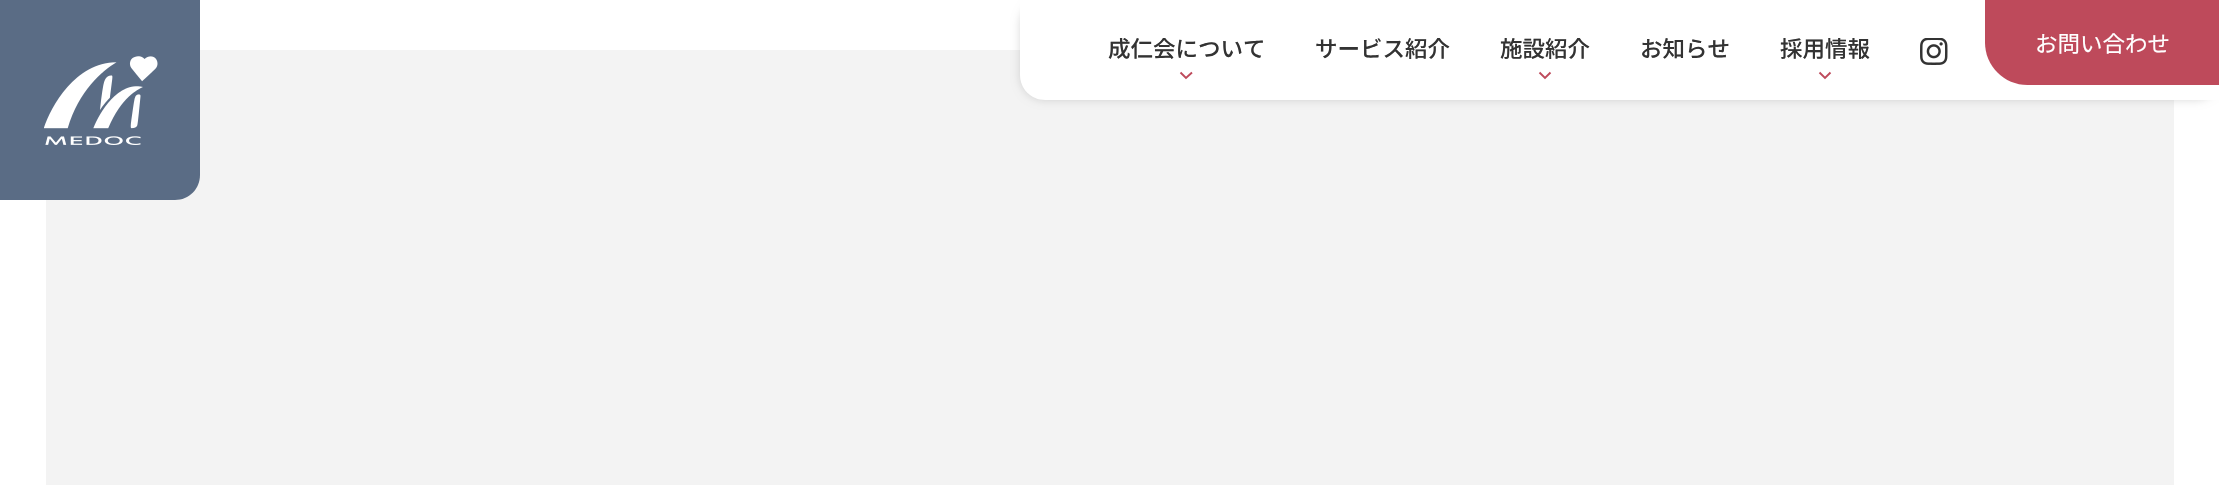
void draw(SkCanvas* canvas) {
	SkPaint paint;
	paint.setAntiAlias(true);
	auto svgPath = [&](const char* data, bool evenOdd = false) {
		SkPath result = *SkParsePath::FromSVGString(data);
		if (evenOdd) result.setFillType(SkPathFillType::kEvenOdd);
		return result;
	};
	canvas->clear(0xffffffff);
	paint.setColor(0xfff3f3f3);
	canvas->drawRect(SkRect::MakeXYWH(46, 50, 2128, 435), paint);
	paint.setColor(0xff5a6c85);
	canvas->drawPath(svgPath("M0 0H200V175C200 189 189 200 175 200H0Z"), paint);
	canvas->drawImageRect(SkImages::DeferredFromEncodedData(SkData::MakeFromFileName("img1.png")), SkRect::MakeXYWH(44, 56, 114, 89), SkSamplingOptions());
	paint.setColor(0x26000000);
	paint.setMaskFilter(SkMaskFilter::MakeBlur(kNormal_SkBlurStyle, 4));
	canvas->drawRoundRect(SkRect::MakeXYWH(1020, 0, 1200, 100), 25, 25, paint);
	paint.setMaskFilter(nullptr);
	paint.setColor(0xffffffff);
	canvas->drawPath(svgPath("M1020 0H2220V100H1045C1031 100 1020 89 1020 75Z"), paint);
	SkFont f1(fontMgr->matchFamilyStyle("Noto Sans JP", SkFontStyle(500, SkFontStyle::kNormal_Width, SkFontStyle::kUpright_Slant)), 22.5);
	f1.setSubpixel(true);
	paint.setColor(0xff333333);
	canvas->drawString("成仁会について", 1108, 57, f1, paint);
	paint.setStroke(true);
	paint.setStrokeWidth(1.9);
	paint.setColor(0xffbe4a5b);
	canvas->drawPath(svgPath("M1192 72.5L1186 78L1180.5 72.5"), paint);
	paint.setStroke(false);
	paint.setColor(0xff333333);
	canvas->drawString("サービス紹介", 1315, 57, f1, paint);
	canvas->drawString("施設紹介", 1500, 57, f1, paint);
	paint.setStroke(true);
	paint.setColor(0xffbe4a5b);
	canvas->drawPath(svgPath("M1550.5 72.5L1545 78L1539.5 72.5"), paint);
	paint.setStroke(false);
	paint.setColor(0xff333333);
	canvas->drawString("お知らせ", 1640, 57, f1, paint);
	canvas->drawString("採用情報", 1780, 57, f1, paint);
	paint.setStroke(true);
	paint.setColor(0xffbe4a5b);
	canvas->drawPath(svgPath("M1830.5 72.5L1825 78L1819.5 72.5"), paint);
	canvas->drawImageRect(SkImages::DeferredFromEncodedData(SkData::MakeFromFileName("img2.png")), SkRect::MakeXYWH(1920, 38, 28, 27), SkSamplingOptions());
	paint.setStroke(false);
	canvas->drawPath(svgPath("M1985 0H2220V85H2027.5C2004 85 1985 66 1985 42.5Z"), paint);
	SkFont f2(fontMgr->matchFamilyStyle("Noto Sans JP", SkFontStyle::Normal()), 22.5);
	f2.setSubpixel(true);
	paint.setColor(0xffffffff);
	canvas->drawString("お問い合わせ", 2035, 52, f2, paint);
}
